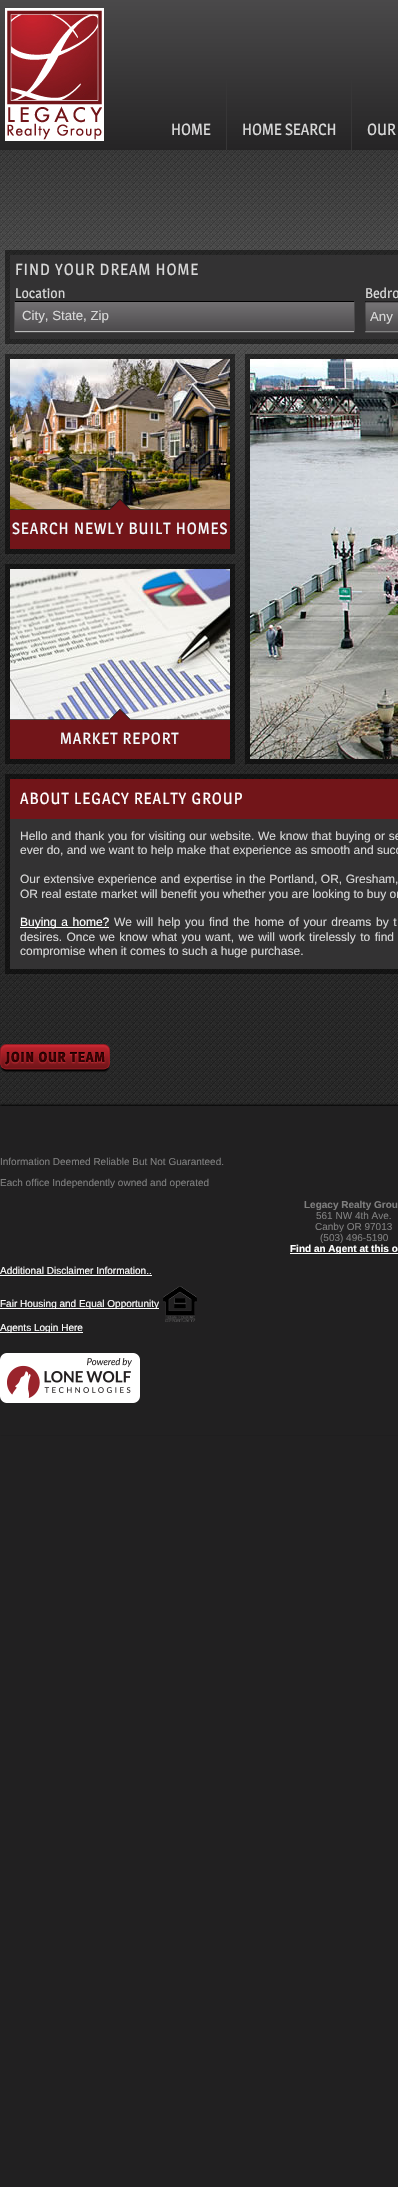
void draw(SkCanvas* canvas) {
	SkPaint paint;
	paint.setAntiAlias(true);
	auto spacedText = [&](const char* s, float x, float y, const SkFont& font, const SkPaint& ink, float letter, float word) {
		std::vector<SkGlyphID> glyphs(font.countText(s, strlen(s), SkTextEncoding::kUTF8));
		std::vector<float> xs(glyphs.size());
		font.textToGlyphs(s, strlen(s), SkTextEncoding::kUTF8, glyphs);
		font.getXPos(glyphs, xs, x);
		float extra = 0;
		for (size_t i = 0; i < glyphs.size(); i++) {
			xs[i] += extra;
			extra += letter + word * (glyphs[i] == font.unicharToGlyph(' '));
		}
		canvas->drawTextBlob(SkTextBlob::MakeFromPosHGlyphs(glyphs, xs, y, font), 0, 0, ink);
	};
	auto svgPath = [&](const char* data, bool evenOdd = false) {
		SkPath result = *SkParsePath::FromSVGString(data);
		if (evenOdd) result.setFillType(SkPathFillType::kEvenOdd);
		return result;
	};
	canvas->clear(0xff212021);
	{
		const SkColor colors[] = {0xff4a494a, 0xff252425};
		const float stops[] = {0, 1};
		const SkPoint ends[] = {{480, 0}, {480, 150}};
		paint.setShader(SkGradientShader::MakeLinear(ends, colors, stops, 2, SkTileMode::kClamp));
		paint.setAlpha(255);
	}
	canvas->drawRect(SkRect::MakeXYWH(0, 0, 398, 150), paint);
	canvas->drawImageRect(SkImages::DeferredFromEncodedData(SkData::MakeFromFileName("img1.png")), SkRect::MakeXYWH(5, 8, 99, 133), SkSamplingOptions());
	SkFont f1(fontMgr->matchFamilyStyle("Magra", SkFontStyle::Normal()), 16);
	f1.setSubpixel(true);
	paint.setShader(nullptr);
	paint.setColor(0xffd8d8d8);
	canvas->drawString("HOME", 171, 135, f1, paint);
	paint.setColor(0xff373637);
	canvas->drawRect(SkRect::MakeXYWH(226, 80, 1, 70), paint);
	paint.setColor(0xffd8d8d8);
	canvas->drawString("HOME SEARCH", 242, 135, f1, paint);
	paint.setColor(0xff373637);
	canvas->drawRect(SkRect::MakeXYWH(351, 80, 1, 70), paint);
	paint.setColor(0xffd8d8d8);
	canvas->drawString("OUR", 367, 135, f1, paint);
	canvas->drawImageRect(SkImages::DeferredFromEncodedData(SkData::MakeFromFileName("img2.png")), SkRect::MakeXYWH(0, 150, 398, 956), SkSamplingOptions());
	paint.setColor(0x80000000);
	canvas->drawRect(SkRect::MakeXYWH(5, 250, 393, 94), paint);
	paint.setColor(0xff333233);
	canvas->drawRect(SkRect::MakeXYWH(10, 255, 388, 84), paint);
	paint.setColor(0xffd8d8d8);
	spacedText("FIND YOUR DREAM HOME", 15, 275, f1, paint, 1, 0);
	SkFont f2(fontMgr->matchFamilyStyle("Magra", SkFontStyle::Normal()), 14);
	f2.setSubpixel(true);
	canvas->drawString("Location", 15, 298, f2, paint);
	paint.setColor(0xffbbbbbb);
	paint.setMaskFilter(SkMaskFilter::MakeBlur(kNormal_SkBlurStyle, 0.5));
	canvas->drawRect(SkRect::MakeXYWH(15, 302, 339, 30), paint);
	paint.setMaskFilter(nullptr);
	{
		const SkColor colors[] = {0xff747274, 0xff4c4a4c};
		const float stops[] = {0, 1};
		const SkPoint ends[] = {{185, 301}, {185, 331}};
		paint.setShader(SkGradientShader::MakeLinear(ends, colors, stops, 2, SkTileMode::kClamp));
		paint.setAlpha(255);
	}
	canvas->drawRect(SkRect::MakeXYWH(15, 302, 339, 29), paint);
	paint.setShader(nullptr);
	paint.setColor(0xff000000);
	canvas->drawRect(SkRect::MakeXYWH(15, 301, 339, 1), paint);
	SkFont f3(fontMgr->matchFamilyStyle("Liberation Sans", SkFontStyle::Normal()), 13.25);
	f3.setSubpixel(true);
	paint.setColor(0xffd8d8d8);
	canvas->drawString("City, State, Zip", 22, 320, f3, paint);
	canvas->drawString("Bedro", 365, 298, f2, paint);
	canvas->drawImageRect(SkImages::DeferredFromEncodedData(SkData::MakeFromFileName("img3.png")), SkRect::MakeXYWH(365, 301, 33, 32), SkSamplingOptions());
	canvas->drawString("Any", 370, 321, f3, paint);
	paint.setColor(0x80000000);
	canvas->drawRect(SkRect::MakeXYWH(5, 354, 230, 200), paint);
	canvas->drawImageRect(SkImages::DeferredFromEncodedData(SkData::MakeFromFileName("img4.png")), SkRect::MakeXYWH(10, 359, 220, 151), SkSamplingOptions());
	canvas->drawImageRect(SkImages::DeferredFromEncodedData(SkData::MakeFromFileName("img5.png")), SkRect::MakeXYWH(10, 499, 220, 50), SkSamplingOptions());
	paint.setColor(0xfff4fdff);
	spacedText("SEARCH NEWLY BUILT HOMES", 12, 534, f1, paint, 1, 0);
	paint.setColor(0x80000000);
	canvas->drawRect(SkRect::MakeXYWH(5, 564, 230, 200), paint);
	canvas->drawImageRect(SkImages::DeferredFromEncodedData(SkData::MakeFromFileName("img6.png")), SkRect::MakeXYWH(10, 569, 220, 151), SkSamplingOptions());
	canvas->drawImageRect(SkImages::DeferredFromEncodedData(SkData::MakeFromFileName("img7.png")), SkRect::MakeXYWH(10, 709, 220, 50), SkSamplingOptions());
	paint.setColor(0xfff4fdff);
	spacedText("MARKET REPORT", 60, 744, f1, paint, 1, 0);
	paint.setColor(0x80000000);
	canvas->drawRect(SkRect::MakeXYWH(245, 354, 153, 410), paint);
	canvas->drawImageRect(SkImages::DeferredFromEncodedData(SkData::MakeFromFileName("img8.png")), SkRect::MakeXYWH(250, 359, 148, 400), SkSamplingOptions());
	canvas->drawRect(SkRect::MakeXYWH(5, 774, 393, 200), paint);
	paint.setColor(0xff333233);
	canvas->drawRect(SkRect::MakeXYWH(10, 819, 388, 150), paint);
	paint.setColor(0xff721519);
	canvas->drawRect(SkRect::MakeXYWH(10, 779, 388, 40), paint);
	paint.setColor(0xffffffff);
	spacedText("ABOUT LEGACY REALTY GROUP", 20, 804, f1, paint, 1, 0);
	SkFont f4(fontMgr->matchFamilyStyle("Liberation Sans", SkFontStyle::Normal()), 12);
	f4.setSubpixel(true);
	paint.setColor(0xffd8d8d8);
	spacedText("Hello and thank you for visiting our website. We know that buying or se", 20, 840, f4, paint, 0, 0.4);
	canvas->drawString("ever do, and we want to help make that experience as smooth and succ", 20, 854, f4, paint);
	spacedText("Our extensive experience and expertise in the Portland, OR, Gresham,", 20, 883, f4, paint, 0, 0.25);
	canvas->drawString("OR real estate market will benefit you whether you are looking to buy or", 20, 898, f4, paint);
	paint.setColor(0xffffffff);
	canvas->drawRect(SkRect::MakeXYWH(20, 927, 89, 1), paint);
	spacedText("Buying a home?", 20, 926, f4, paint, 0, 1.25);
	paint.setColor(0xffd8d8d8);
	spacedText("We will help you find the home of your dreams by t", 114, 926, f4, paint, 0, 1.25);
	spacedText("desires. Once we know what you want, we will work tirelessly to find", 20, 941, f4, paint, 0, 1.1);
	canvas->drawString("compromise when it comes to such a huge purchase.", 20, 955, f4, paint);
	canvas->drawImageRect(SkImages::DeferredFromEncodedData(SkData::MakeFromFileName("img9.png")), SkRect::MakeXYWH(0, 1044, 110, 29), SkSamplingOptions());
	canvas->save();
	canvas->clipPath(svgPath("M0 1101H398V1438H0ZM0 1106H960V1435H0Z", true), true);
	paint.setColor(0xff000000);
	paint.setMaskFilter(SkMaskFilter::MakeBlur(kNormal_SkBlurStyle, 1));
	canvas->drawRect(SkRect::MakeXYWH(0, 1105, 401, 329), paint);
	paint.setMaskFilter(nullptr);
	canvas->restore();
	SkFont f5(fontMgr->matchFamilyStyle("Liberation Sans", SkFontStyle::Normal()), 10);
	f5.setSubpixel(true);
	paint.setColor(0xff7e7e7e);
	canvas->drawString("Information Deemed Reliable But Not Guaranteed.", 0, 1165, f5, paint);
	canvas->drawString("Each office Independently owned and operated", 0, 1186, f5, paint);
	SkFont f6(fontMgr->matchFamilyStyle("Liberation Sans", SkFontStyle::Bold()), 10);
	f6.setSubpixel(true);
	canvas->drawString("Legacy Realty Grou", 304, 1208, f6, paint);
	canvas->drawString("561 NW 4th Ave.", 316, 1219, f5, paint);
	canvas->drawString("Canby OR 97013", 315, 1230, f5, paint);
	canvas->drawString("(503) 496-5190", 320, 1241, f5, paint);
	paint.setColor(0xffffffff);
	canvas->drawRect(SkRect::MakeXYWH(290, 1253, 108, 1), paint);
	canvas->drawString("Find an Agent at this o", 290, 1252, f6, paint);
	canvas->drawString("Additional Disclaimer Information..", 0, 1274, f5, paint);
	canvas->drawRect(SkRect::MakeXYWH(0, 1275, 152, 1), paint);
	canvas->drawRect(SkRect::MakeXYWH(0, 1308, 159, 1), paint);
	canvas->drawString("Fair Housing and Equal Opportunity", 0, 1307, f5, paint);
	canvas->drawImageRect(SkImages::DeferredFromEncodedData(SkData::MakeFromFileName("img10.png")), SkRect::MakeXYWH(163, 1286, 34, 36), SkSamplingOptions());
	canvas->drawRect(SkRect::MakeXYWH(0, 1332, 83, 1), paint);
	canvas->drawString("Agents Login Here", 0, 1331, f5, paint);
	canvas->drawImageRect(SkImages::DeferredFromEncodedData(SkData::MakeFromFileName("img11.png")), SkRect::MakeXYWH(0, 1353, 140, 50), SkSamplingOptions());
}
